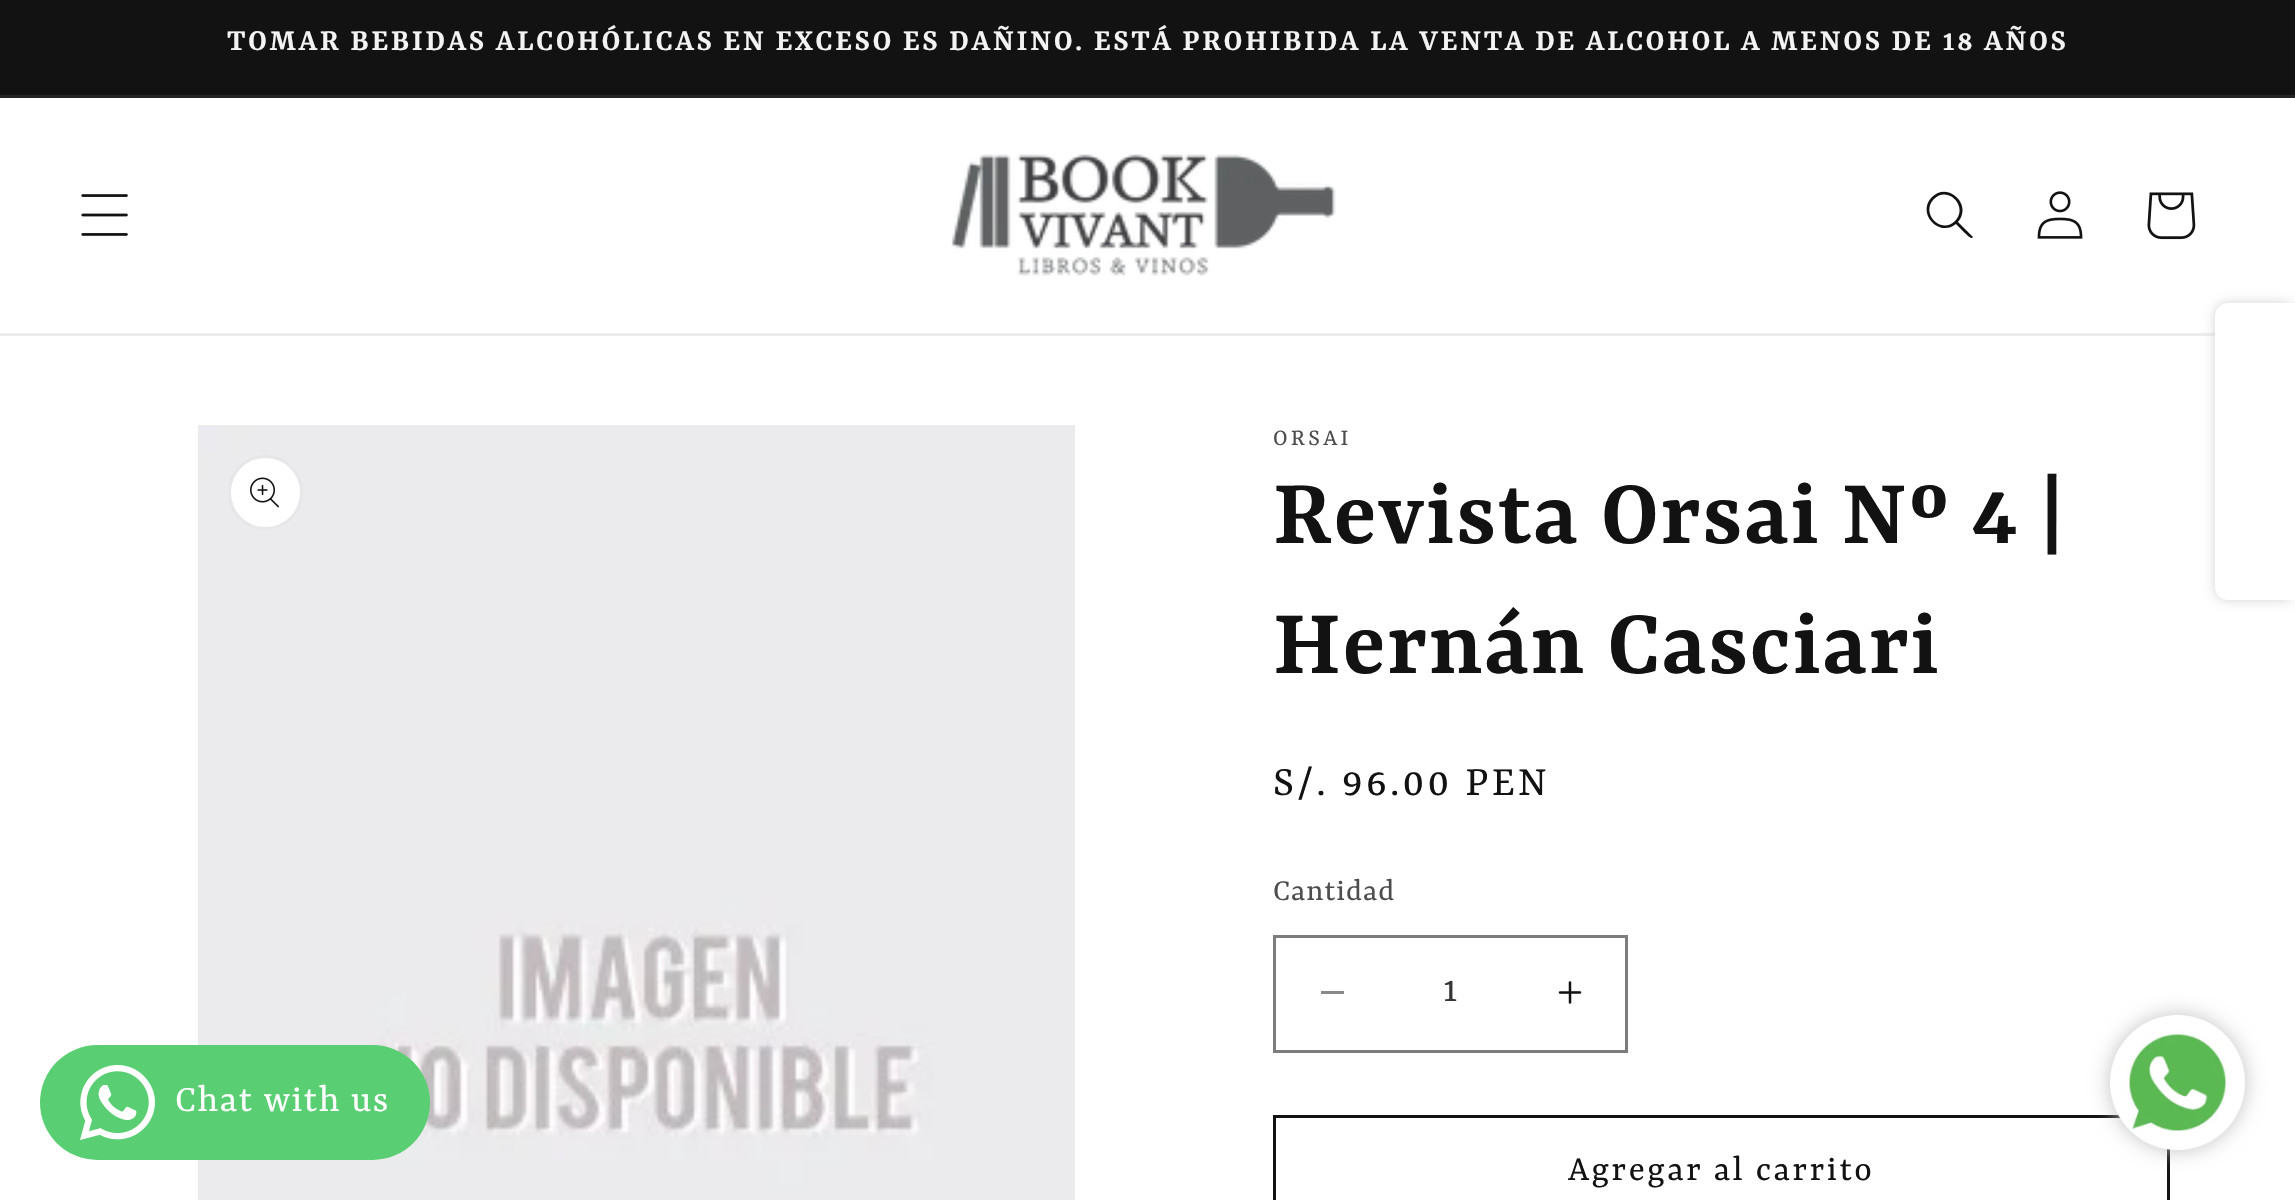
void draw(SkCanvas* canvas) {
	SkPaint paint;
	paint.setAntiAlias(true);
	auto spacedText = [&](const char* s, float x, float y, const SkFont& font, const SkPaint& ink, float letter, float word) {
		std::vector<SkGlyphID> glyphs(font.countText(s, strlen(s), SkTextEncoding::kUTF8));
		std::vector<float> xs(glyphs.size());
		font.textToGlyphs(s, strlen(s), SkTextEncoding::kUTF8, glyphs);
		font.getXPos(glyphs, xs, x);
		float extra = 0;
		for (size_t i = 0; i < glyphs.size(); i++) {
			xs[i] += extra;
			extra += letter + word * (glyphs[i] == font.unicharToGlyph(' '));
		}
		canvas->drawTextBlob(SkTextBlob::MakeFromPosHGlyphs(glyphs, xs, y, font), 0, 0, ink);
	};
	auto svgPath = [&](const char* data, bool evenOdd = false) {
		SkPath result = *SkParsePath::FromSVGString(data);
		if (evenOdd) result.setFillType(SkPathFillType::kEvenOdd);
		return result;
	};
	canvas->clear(0xffffffff);
	paint.setColor(0xff121212);
	canvas->drawRect(SkRect::MakeXYWH(0, 0, 2295, 95), paint);
	paint.setColor(0xff242424);
	canvas->drawRect(SkRect::MakeXYWH(0, 95, 2295, 3), paint);
	SkFont f1(fontMgr->matchFamilyStyle("Rasa", SkFontStyle(600, SkFontStyle::kNormal_Width, SkFontStyle::kUpright_Slant)), 32.5);
	f1.setSubpixel(true);
	paint.setColor(0xfff3f3f3);
	spacedText("TOMAR BEBIDAS ALCOHÓLICAS EN EXCESO ES DAÑINO. ESTÁ PROHIBIDA LA VENTA DE ALCOHOL A MENOS DE 18 AÑOS", 227, 50, f1, paint, 2.5, 0);
	paint.setColor(0xffececec);
	canvas->drawRect(SkRect::MakeXYWH(0, 333, 2215, 3), paint);
	canvas->drawImageRect(SkImages::DeferredFromEncodedData(SkData::MakeFromFileName("img1.png")), SkRect::MakeXYWH(81, 194, 47, 42), SkSamplingOptions());
	canvas->drawImageRect(SkImages::DeferredFromEncodedData(SkData::MakeFromFileName("img2.png")), SkRect::MakeXYWH(951, 154, 385, 122), SkSamplingOptions());
	paint.setColor(0xff121212);
	canvas->drawPath(svgPath("M1955 221C1941 235 1920 213 1934 199C1948 185 1969 207 1955 221ZM1956 224C1939 238 1916 213 1932 197C1948 181 1973 205 1958 222L1973 237L1972 238C1970 239 1958 226 1956 224Z", true), paint);
	canvas->drawImageRect(SkImages::DeferredFromEncodedData(SkData::MakeFromFileName("img3.png")), SkRect::MakeXYWH(2037, 191, 46, 48), SkSamplingOptions());
	canvas->drawImageRect(SkImages::DeferredFromEncodedData(SkData::MakeFromFileName("img4.png")), SkRect::MakeXYWH(2147, 192, 49, 48), SkSamplingOptions());
	canvas->drawImageRect(SkImages::DeferredFromEncodedData(SkData::MakeFromFileName("img5.png")), SkRect::MakeXYWH(198, 425, 877, 775), SkSamplingOptions());
	paint.setColor(0xffffffff);
	canvas->drawCircle(265.5, 492.5, 37.5, paint);
	paint.setStroke(true);
	paint.setStrokeWidth(3);
	paint.setColor(0x1a121212);
	canvas->drawCircle(265.5, 492.5, 36, paint);
	canvas->drawImageRect(SkImages::DeferredFromEncodedData(SkData::MakeFromFileName("img6.png")), SkRect::MakeXYWH(250, 477, 29, 31), SkSamplingOptions());
	SkFont f2(fontMgr->matchFamilyStyle("Rasa", SkFontStyle::Normal()), 25);
	f2.setSubpixel(true);
	paint.setStroke(false);
	paint.setColor(0xff4d4d4d);
	spacedText("ORSAI", 1273, 445, f2, paint, 3.25, 0);
	SkFont f3(fontMgr->matchFamilyStyle("Rasa", SkFontStyle(600, SkFontStyle::kNormal_Width, SkFontStyle::kUpright_Slant)), 100);
	f3.setSubpixel(true);
	paint.setColor(0xff121212);
	spacedText("Revista Orsai Nº 4 |", 1273, 543, f3, paint, 1.5, 0);
	spacedText("Hernán Casciari", 1273, 673, f3, paint, 1.5, 0);
	SkFont f4(fontMgr->matchFamilyStyle("Rasa", SkFontStyle::Normal()), 45);
	f4.setSubpixel(true);
	spacedText("S/. 96.00 PEN", 1273, 795, f4, paint, 3.25, 0);
	SkFont f5(fontMgr->matchFamilyStyle("Rasa", SkFontStyle::Normal()), 32.5);
	f5.setSubpixel(true);
	paint.setColor(0xff4d4d4d);
	spacedText("Cantidad", 1273, 900, f5, paint, 1, 0);
	paint.setColor(0xff898989);
	canvas->drawRect(SkRect::MakeXYWH(1321, 991, 23, 3), paint);
	canvas->drawImageRect(SkImages::DeferredFromEncodedData(SkData::MakeFromFileName("img7.png")), SkRect::MakeXYWH(1558, 981, 24, 23), SkSamplingOptions());
	paint.setStroke(true);
	paint.setColor(0xff7d7d7d);
	canvas->drawRect(SkRect::MakeXYWH(1274.5, 936.5, 352, 115), paint);
	SkFont f6(fontMgr->matchFamilyStyle("Rasa", SkFontStyle::Normal()), 40);
	f6.setSubpixel(true);
	paint.setStroke(false);
	paint.setColor(0xff363636);
	canvas->drawString("1", 1443, 1001, f6, paint);
	paint.setStroke(true);
	paint.setColor(0xff121212);
	canvas->drawRect(SkRect::MakeXYWH(1274.5, 1116.5, 894, 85), paint);
	SkFont f7(fontMgr->matchFamilyStyle("Rasa", SkFontStyle::Normal()), 37.5);
	f7.setSubpixel(true);
	paint.setStroke(false);
	spacedText("Agregar al carrito", 1568, 1180, f7, paint, 2.5, 0);
	paint.setColor(0xffd3d3d3);
	paint.setMaskFilter(SkMaskFilter::MakeBlur(kNormal_SkBlurStyle, 6));
	canvas->drawRoundRect(SkRect::MakeXYWH(2215, 303, 80, 297), 13, 13, paint);
	paint.setMaskFilter(nullptr);
	paint.setColor(0xffffffff);
	canvas->drawPath(svgPath("M2228 303H2295V600H2228C2221 600 2215 594 2215 587V316C2215 309 2221 303 2228 303Z"), paint);
	paint.setColor(0xff59ce72);
	canvas->drawRoundRect(SkRect::MakeXYWH(40, 1045, 390, 115), 57.5, 57.5, paint);
	canvas->drawImageRect(SkImages::DeferredFromEncodedData(SkData::MakeFromFileName("img8.png")), SkRect::MakeXYWH(80, 1065, 75, 75), SkSamplingOptions());
	paint.setColor(0xffffffff);
	spacedText("Chat with us", 175, 1111, f6, paint, 1.5, 0);
	paint.setColor(0xffc2c2c2);
	paint.setMaskFilter(SkMaskFilter::MakeBlur(kNormal_SkBlurStyle, 10));
	canvas->drawRoundRect(SkRect::MakeXYWH(2110, 1015, 135, 135), 67.5, 67.5, paint);
	paint.setMaskFilter(nullptr);
	canvas->drawImageRect(SkImages::DeferredFromEncodedData(SkData::MakeFromFileName("img9.png")), SkRect::MakeXYWH(2110, 1015, 135, 135), SkSamplingOptions());
}
